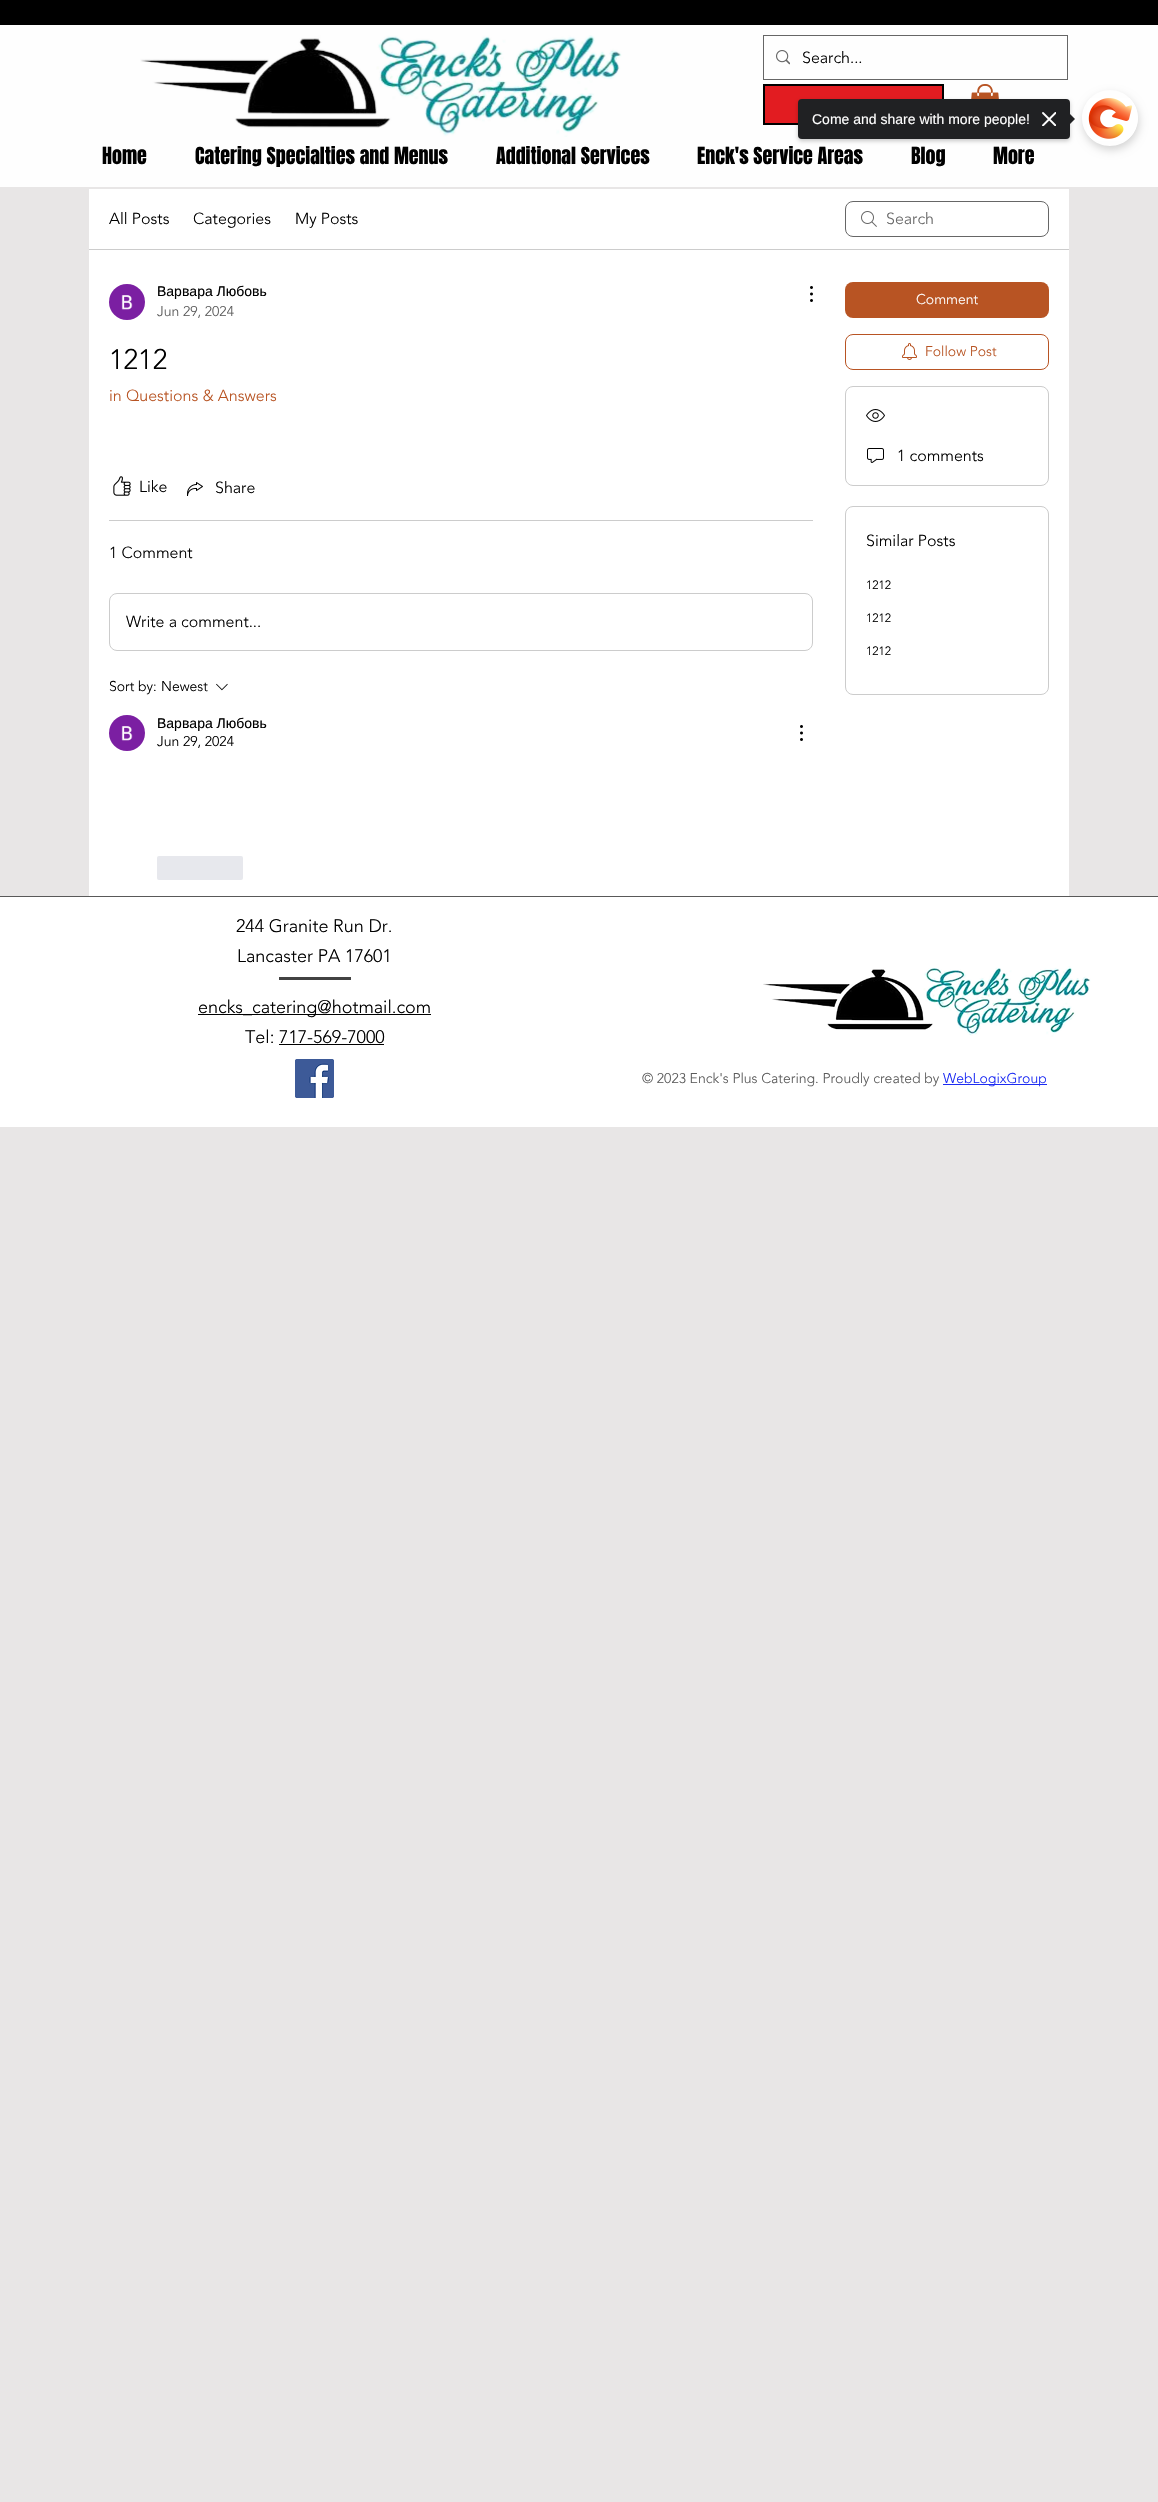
void draw(SkCanvas* canvas) {
	SkPaint paint;
	paint.setAntiAlias(true);
	auto svgPath = [&](const char* data, bool evenOdd = false) {
		SkPath result = *SkParsePath::FromSVGString(data);
		if (evenOdd) result.setFillType(SkPathFillType::kEvenOdd);
		return result;
	};
	canvas->clear(0xffe8e6e6);
	paint.setColor(0xff000000);
	canvas->drawRect(SkRect::MakeXYWH(0, 0, 1158, 25), paint);
	paint.setColor(0xfffefefe);
	canvas->drawRect(SkRect::MakeXYWH(0, 25, 1158, 162), paint);
	canvas->drawImageRect(SkImages::DeferredFromEncodedData(SkData::MakeFromFileName("img1.png")), SkRect::MakeXYWH(140, 35, 482, 102), SkSamplingOptions());
	paint.setStroke(true);
	paint.setStrokeWidth(1);
	paint.setColor(0xff666666);
	canvas->drawRect(SkRect::MakeXYWH(763.5, 35.5, 304, 44), paint);
	canvas->drawImageRect(SkImages::DeferredFromEncodedData(SkData::MakeFromFileName("img2.png")), SkRect::MakeXYWH(776, 50, 14, 15), SkSamplingOptions());
	SkFont f1(fontMgr->matchFamilyStyle("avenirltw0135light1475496", SkFontStyle(300, SkFontStyle::kNormal_Width, SkFontStyle::kUpright_Slant)), 16);
	f1.setSubpixel(true);
	paint.setStroke(false);
	paint.setColor(0xff000000);
	canvas->drawString("Search...", 802, 63, f1, paint);
	paint.setColor(0xffe21c21);
	canvas->drawRect(SkRect::MakeXYWH(764, 85, 179, 39), paint);
	paint.setStroke(true);
	paint.setStrokeWidth(2);
	paint.setColor(0xff000000);
	canvas->drawRect(SkRect::MakeXYWH(764, 85, 179, 39), paint);
	canvas->drawImageRect(SkImages::DeferredFromEncodedData(SkData::MakeFromFileName("img3.png")), SkRect::MakeXYWH(971, 84, 28, 15), SkSamplingOptions());
	SkFont f2(fontMgr->matchFamilyStyle("Anton", SkFontStyle::Normal()), 20);
	f2.setSubpixel(true);
	paint.setStroke(false);
	canvas->drawString("Home", 102, 164, f2, paint);
	canvas->drawString("Catering Specialties and Menus", 195, 164, f2, paint);
	canvas->drawString("Additional Services", 496, 164, f2, paint);
	canvas->drawString("Enck's Service Areas", 697, 164, f2, paint);
	canvas->drawString("Blog", 911, 164, f2, paint);
	canvas->drawString("More", 993, 164, f2, paint);
	paint.setColor(0xffffffff);
	canvas->drawRect(SkRect::MakeXYWH(89, 189, 980, 707), paint);
	paint.setColor(0xffcccccc);
	canvas->drawRect(SkRect::MakeXYWH(89, 249, 980, 1), paint);
	paint.setColor(0xff000000);
	canvas->drawString("All Posts", 109, 224, f1, paint);
	canvas->drawString("Categories", 193, 224, f1, paint);
	canvas->drawString("My Posts", 295, 224, f1, paint);
	canvas->drawImageRect(SkImages::DeferredFromEncodedData(SkData::MakeFromFileName("img4.png")), SkRect::MakeXYWH(861, 211, 16, 16), SkSamplingOptions());
	paint.setStroke(true);
	paint.setStrokeWidth(1);
	paint.setColor(0xff666666);
	canvas->drawRoundRect(SkRect::MakeXYWH(845.5, 201.5, 203, 35), 7.5, 7.5, paint);
	paint.setStroke(false);
	canvas->drawString("Search", 886, 224, f1, paint);
	canvas->drawImageRect(SkImages::DeferredFromEncodedData(SkData::MakeFromFileName("img5.png")), SkRect::MakeXYWH(109, 284, 36, 36), SkSamplingOptions());
	SkFont f3(fontMgr->matchFamilyStyle("Liberation Sans", SkFontStyle::Normal()), 14);
	f3.setSubpixel(true);
	paint.setColor(0xff000000);
	canvas->drawString("Варвара Любовь", 157, 296, f3, paint);
	SkFont f4(fontMgr->matchFamilyStyle("avenirltw0135light1475496", SkFontStyle(300, SkFontStyle::kNormal_Width, SkFontStyle::kUpright_Slant)), 14);
	f4.setSubpixel(true);
	paint.setColor(0xff5c5c5c);
	canvas->drawString("Jun 29, 2024", 157, 316, f4, paint);
	canvas->drawImageRect(SkImages::DeferredFromEncodedData(SkData::MakeFromFileName("img6.png")), SkRect::MakeXYWH(810, 286, 3, 16), SkSamplingOptions());
	SkFont f5(fontMgr->matchFamilyStyle("avenirltw0135light1475496", SkFontStyle(300, SkFontStyle::kNormal_Width, SkFontStyle::kUpright_Slant)), 28);
	f5.setSubpixel(true);
	paint.setColor(0xff000000);
	canvas->drawString("1212", 109, 369, f5, paint);
	paint.setColor(0xffb85423);
	canvas->drawString("in Questions & Answers", 109, 401, f1, paint);
	canvas->drawImageRect(SkImages::DeferredFromEncodedData(SkData::MakeFromFileName("img7.png")), SkRect::MakeXYWH(113, 476, 18, 20), SkSamplingOptions());
	paint.setColor(0xff000000);
	canvas->drawString("Like", 139, 492, f1, paint);
	canvas->drawImageRect(SkImages::DeferredFromEncodedData(SkData::MakeFromFileName("img8.png")), SkRect::MakeXYWH(187, 482, 16, 14), SkSamplingOptions());
	canvas->drawString("Share", 215, 493, f1, paint);
	paint.setColor(0xffcccccc);
	canvas->drawRect(SkRect::MakeXYWH(109, 520, 704, 1), paint);
	paint.setColor(0xff000000);
	canvas->drawString("1 Comment", 109, 558, f1, paint);
	paint.setStroke(true);
	paint.setColor(0xffcccccc);
	canvas->drawRoundRect(SkRect::MakeXYWH(109.5, 593.5, 703, 57), 7.5, 7.5, paint);
	paint.setStroke(false);
	paint.setColor(0xff000000);
	canvas->drawString("Write a comment...", 126, 627, f1, paint);
	canvas->drawString("Sort by:", 109, 691, f4, paint);
	canvas->drawString("Newest", 161, 691, f4, paint);
	canvas->drawImageRect(SkImages::DeferredFromEncodedData(SkData::MakeFromFileName("img9.png")), SkRect::MakeXYWH(216, 683, 12, 8), SkSamplingOptions());
	canvas->drawImageRect(SkImages::DeferredFromEncodedData(SkData::MakeFromFileName("img10.png")), SkRect::MakeXYWH(109, 715, 36, 36), SkSamplingOptions());
	canvas->drawString("Варвара Любовь", 157, 728, f3, paint);
	canvas->drawString("Jun 29, 2024", 157, 746, f4, paint);
	canvas->drawImageRect(SkImages::DeferredFromEncodedData(SkData::MakeFromFileName("img11.png")), SkRect::MakeXYWH(800, 725, 3, 16), SkSamplingOptions());
	paint.setColor(0xffe7e8ed);
	canvas->drawRoundRect(SkRect::MakeXYWH(157, 856, 86, 24), 2, 2, paint);
	paint.setColor(0xffb85423);
	canvas->drawRoundRect(SkRect::MakeXYWH(845, 282, 204, 36), 8, 8, paint);
	paint.setColor(0xffffffff);
	canvas->drawString("Comment", 916, 304, f4, paint);
	paint.setStroke(true);
	paint.setColor(0xffb85423);
	canvas->drawRoundRect(SkRect::MakeXYWH(845.5, 334.5, 203, 35), 7.5, 7.5, paint);
	canvas->drawImageRect(SkImages::DeferredFromEncodedData(SkData::MakeFromFileName("img12.png")), SkRect::MakeXYWH(902, 343, 15, 17), SkSamplingOptions());
	paint.setStroke(false);
	canvas->drawString("Follow Post", 925, 356, f4, paint);
	paint.setStroke(true);
	paint.setColor(0xffcccccc);
	canvas->drawRoundRect(SkRect::MakeXYWH(845.5, 386.5, 203, 99), 7.5, 7.5, paint);
	canvas->drawImageRect(SkImages::DeferredFromEncodedData(SkData::MakeFromFileName("img13.png")), SkRect::MakeXYWH(866, 409, 19, 13), SkSamplingOptions());
	canvas->drawImageRect(SkImages::DeferredFromEncodedData(SkData::MakeFromFileName("img14.png")), SkRect::MakeXYWH(867, 448, 17, 15), SkSamplingOptions());
	paint.setStroke(false);
	paint.setColor(0xff000000);
	canvas->drawString("1 comments", 897, 461, f1, paint);
	paint.setStroke(true);
	paint.setColor(0xffcccccc);
	canvas->drawRoundRect(SkRect::MakeXYWH(845.5, 506.5, 203, 188), 7.5, 7.5, paint);
	paint.setStroke(false);
	paint.setColor(0xff000000);
	canvas->drawString("Similar Posts", 866, 546, f1, paint);
	SkFont f6(fontMgr->matchFamilyStyle("avenirltw0135light1475496", SkFontStyle(300, SkFontStyle::kNormal_Width, SkFontStyle::kUpright_Slant)), 12);
	f6.setSubpixel(true);
	canvas->drawString("1212", 866, 589, f6, paint);
	canvas->drawString("1212", 866, 622, f6, paint);
	canvas->drawString("1212", 866, 655, f6, paint);
	paint.setColor(0xffffffff);
	canvas->drawRect(SkRect::MakeXYWH(0, 897, 1158, 230), paint);
	paint.setColor(0xff595959);
	canvas->drawRect(SkRect::MakeXYWH(0, 896, 1158, 1), paint);
	SkFont f7(fontMgr->matchFamilyStyle("avenirltw0135light1475496", SkFontStyle(300, SkFontStyle::kNormal_Width, SkFontStyle::kUpright_Slant)), 18);
	f7.setSubpixel(true);
	paint.setColor(0xff000000);
	canvas->drawString("244 Granite Run Dr.", 236, 932, f7, paint);
	canvas->drawString("Lancaster PA 17601", 237, 962, f7, paint);
	paint.setColor(0xff424242);
	canvas->drawRect(SkRect::MakeXYWH(279, 977, 72, 3), paint);
	paint.setColor(0xff000000);
	canvas->drawRect(SkRect::MakeXYWH(198, 1014, 233, 1), paint);
	canvas->drawString("encks_catering@hotmail.com", 198, 1013, f7, paint);
	canvas->drawString("Tel: 717-569-7000", 245, 1043, f7, paint);
	canvas->drawRect(SkRect::MakeXYWH(279, 1044, 105, 1), paint);
	canvas->drawImageRect(SkImages::DeferredFromEncodedData(SkData::MakeFromFileName("img15.png")), SkRect::MakeXYWH(295, 1059, 39, 39), SkSamplingOptions());
	paint.setColor(0xff5c5c5c);
	canvas->drawString("© 2023 Enck's Plus Catering. Proudly created by", 642, 1083, f4, paint);
	paint.setColor(0xff1d2cf3);
	canvas->drawRect(SkRect::MakeXYWH(943, 1084, 104, 1), paint);
	canvas->drawString("WebLogixGroup", 943, 1083, f4, paint);
	canvas->drawImageRect(SkImages::DeferredFromEncodedData(SkData::MakeFromFileName("img16.png")), SkRect::MakeXYWH(763, 966, 328, 71), SkSamplingOptions());
	canvas->save();
	canvas->clipPath(svgPath("M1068 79H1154V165H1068ZM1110 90C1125.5 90 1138 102.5 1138 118C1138 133.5 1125.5 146 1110 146C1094.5 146 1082 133.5 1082 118C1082 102.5 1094.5 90 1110 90Z", true), true);
	paint.setColor(0x2b000000);
	paint.setMaskFilter(SkMaskFilter::MakeBlur(kNormal_SkBlurStyle, 4.5));
	canvas->drawRoundRect(SkRect::MakeXYWH(1083, 94, 56, 56), 28, 28, paint);
	paint.setMaskFilter(nullptr);
	canvas->restore();
	paint.setColor(0x38000000);
	paint.setMaskFilter(SkMaskFilter::MakeBlur(kNormal_SkBlurStyle, 2));
	canvas->drawRoundRect(SkRect::MakeXYWH(798, 101, 272, 40), 4, 4, paint);
	paint.setMaskFilter(nullptr);
	paint.setColor(0xff202123);
	canvas->drawRoundRect(SkRect::MakeXYWH(798, 99, 272, 40), 4, 4, paint);
	paint.setColor(0xffffffff);
	canvas->drawString("Come and share with more people!", 812, 124, f3, paint);
	canvas->drawImageRect(SkImages::DeferredFromEncodedData(SkData::MakeFromFileName("img17.png")), SkRect::MakeXYWH(1042, 112, 14, 14), SkSamplingOptions());
	paint.setColor(0xff202123);
	canvas->drawPath(svgPath("M1068 126V112L1075 119Z"), paint);
	canvas->drawImageRect(SkImages::DeferredFromEncodedData(SkData::MakeFromFileName("img18.png")), SkRect::MakeXYWH(1087, 98, 51, 43), SkSamplingOptions());
}
